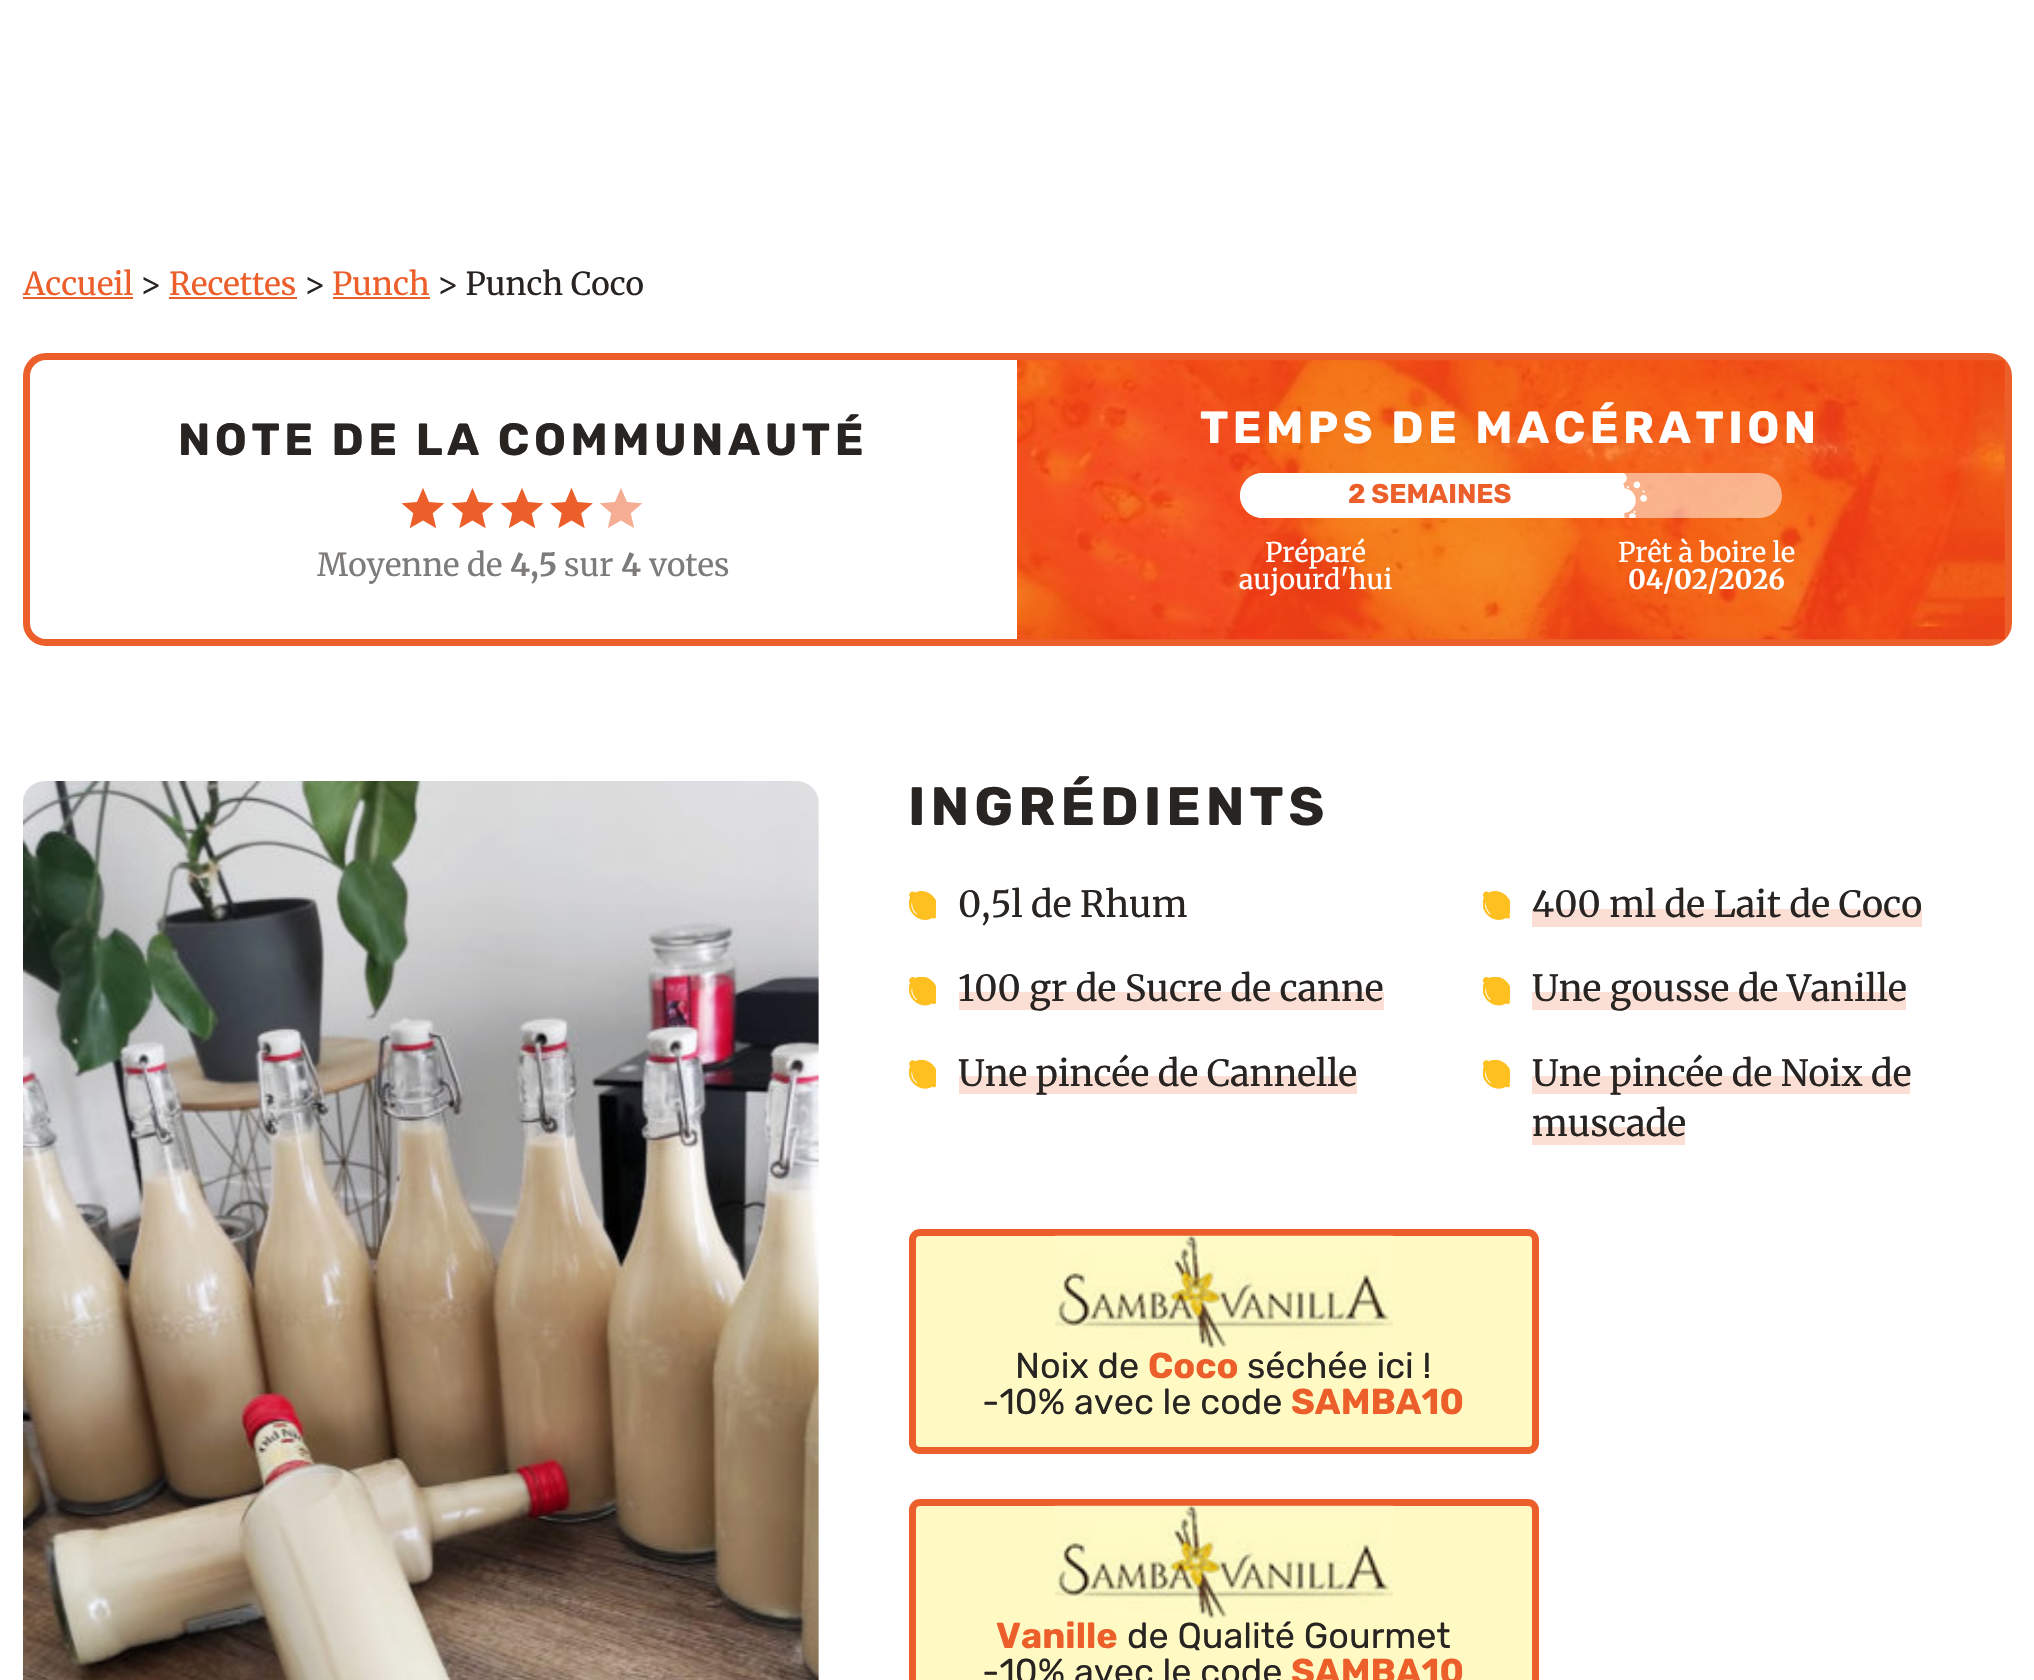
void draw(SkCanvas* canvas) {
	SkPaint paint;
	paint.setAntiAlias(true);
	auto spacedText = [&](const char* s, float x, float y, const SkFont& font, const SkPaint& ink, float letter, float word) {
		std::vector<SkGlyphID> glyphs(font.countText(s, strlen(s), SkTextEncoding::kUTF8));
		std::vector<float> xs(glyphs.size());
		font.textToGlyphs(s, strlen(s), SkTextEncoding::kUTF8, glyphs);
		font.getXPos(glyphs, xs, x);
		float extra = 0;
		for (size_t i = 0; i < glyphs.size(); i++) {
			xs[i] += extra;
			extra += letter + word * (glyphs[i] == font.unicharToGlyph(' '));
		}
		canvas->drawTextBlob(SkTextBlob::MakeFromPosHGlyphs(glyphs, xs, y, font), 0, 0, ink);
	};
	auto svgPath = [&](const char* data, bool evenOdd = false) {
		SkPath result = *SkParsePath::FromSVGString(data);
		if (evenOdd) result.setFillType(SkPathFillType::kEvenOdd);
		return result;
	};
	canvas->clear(0xffffffff);
	SkFont f1(fontMgr->matchFamilyStyle("Merriweather", SkFontStyle::Normal()), 31.5);
	f1.setSubpixel(true);
	paint.setColor(0xffec5e2a);
	canvas->drawString("Accueil", 23, 295, f1, paint);
	canvas->drawRect(SkRect::MakeXYWH(23, 297, 110, 2), paint);
	paint.setColor(0xff282422);
	canvas->drawString(">", 140, 295, f1, paint);
	paint.setColor(0xffec5e2a);
	canvas->drawString("Recettes", 169, 295, f1, paint);
	canvas->drawRect(SkRect::MakeXYWH(169, 297, 128, 2), paint);
	paint.setColor(0xff282422);
	canvas->drawString(">", 304, 295, f1, paint);
	paint.setColor(0xffec5e2a);
	canvas->drawString("Punch", 332, 295, f1, paint);
	canvas->drawRect(SkRect::MakeXYWH(333, 297, 97, 2), paint);
	paint.setColor(0xff282422);
	canvas->drawString("> Punch Coco", 437, 295, f1, paint);
	paint.setStroke(true);
	paint.setStrokeWidth(7);
	paint.setColor(0xffec5e2a);
	canvas->drawRoundRect(SkRect::MakeXYWH(26.5, 356.5, 1982, 286), 19.5, 19.5, paint);
	SkFont f2(fontMgr->matchFamilyStyle("Rubik", SkFontStyle::Bold()), 45);
	f2.setSubpixel(true);
	paint.setStroke(false);
	paint.setColor(0xff282422);
	spacedText("NOTE DE LA COMMUNAUTÉ", 178, 455, f2, paint, 4.5, 0);
	canvas->drawImageRect(SkImages::DeferredFromEncodedData(SkData::MakeFromFileName("img1.png")), SkRect::MakeXYWH(401, 488, 44, 41), SkSamplingOptions());
	canvas->drawImageRect(SkImages::DeferredFromEncodedData(SkData::MakeFromFileName("img2.png")), SkRect::MakeXYWH(451, 488, 43, 41), SkSamplingOptions());
	canvas->drawImageRect(SkImages::DeferredFromEncodedData(SkData::MakeFromFileName("img3.png")), SkRect::MakeXYWH(500, 488, 44, 41), SkSamplingOptions());
	canvas->drawImageRect(SkImages::DeferredFromEncodedData(SkData::MakeFromFileName("img2.png")), SkRect::MakeXYWH(550, 488, 43, 41), SkSamplingOptions());
	canvas->drawImageRect(SkImages::DeferredFromEncodedData(SkData::MakeFromFileName("img4.png")), SkRect::MakeXYWH(599, 488, 44, 40), SkSamplingOptions());
	paint.setColor(0xff7e7c7a);
	canvas->drawString("Moyenne de", 317, 576, f1, paint);
	SkFont f3(fontMgr->matchFamilyStyle("Merriweather", SkFontStyle::Bold()), 31.5);
	f3.setSubpixel(true);
	canvas->drawString("4,5", 510, 576, f3, paint);
	canvas->drawString("sur", 564, 576, f1, paint);
	canvas->drawString("4", 621, 576, f3, paint);
	canvas->drawString("votes", 649, 576, f1, paint);
	paint.setColor(0xffec5e2a);
	canvas->drawRect(SkRect::MakeXYWH(1017, 360, 988, 279), paint);
	canvas->drawImageRect(SkImages::DeferredFromEncodedData(SkData::MakeFromFileName("img5.png")), SkRect::MakeXYWH(1017, 360, 988, 280), SkSamplingOptions());
	paint.setColor(0xffffffff);
	spacedText("TEMPS DE MACÉRATION", 1200, 443, f2, paint, 4.5, 0);
	paint.setColor(0x80ffffff);
	canvas->drawRoundRect(SkRect::MakeXYWH(1240, 473, 542, 45), 22.5, 22.5, paint);
	paint.setColor(0xffffffff);
	canvas->drawPath(svgPath("M1262.5 473H1620V518H1262.5C1250 518 1240 508 1240 495.5C1240 483 1250 473 1262.5 473Z"), paint);
	SkFont f4(fontMgr->matchFamilyStyle("Rubik", SkFontStyle::Bold()), 27);
	f4.setSubpixel(true);
	paint.setColor(0xffec5e2a);
	canvas->drawString("2 SEMAINES", 1348, 503, f4, paint);
	canvas->drawImageRect(SkImages::DeferredFromEncodedData(SkData::MakeFromFileName("img6.png")), SkRect::MakeXYWH(1620, 473, 27, 45), SkSamplingOptions());
	SkFont f5(fontMgr->matchFamilyStyle("Merriweather", SkFontStyle::Normal()), 27);
	f5.setSubpixel(true);
	paint.setColor(0xffffffff);
	canvas->drawString("Préparé", 1265, 562, f5, paint);
	canvas->drawString("aujourd'hui", 1239, 589, f5, paint);
	canvas->drawString("Prêt à boire le", 1618, 562, f5, paint);
	SkFont f6(fontMgr->matchFamilyStyle("Merriweather", SkFontStyle::Bold()), 27);
	f6.setSubpixel(true);
	canvas->drawString("04/02/2026", 1628, 589, f6, paint);
	canvas->drawImageRect(SkImages::DeferredFromEncodedData(SkData::MakeFromFileName("img7.png")), SkRect::MakeXYWH(23, 781, 796, 899), SkSamplingOptions());
	SkFont f7(fontMgr->matchFamilyStyle("Rubik", SkFontStyle::Bold()), 54);
	f7.setSubpixel(true);
	paint.setColor(0xff282422);
	spacedText("INGRÉDIENTS", 908, 825, f7, paint, 5, 0);
	canvas->drawImageRect(SkImages::DeferredFromEncodedData(SkData::MakeFromFileName("img8.png")), SkRect::MakeXYWH(909, 891, 27, 29), SkSamplingOptions());
	SkFont f8(fontMgr->matchFamilyStyle("Merriweather", SkFontStyle::Normal()), 36);
	f8.setSubpixel(true);
	canvas->drawString("0,5l de Rhum", 958, 917, f8, paint);
	canvas->drawImageRect(SkImages::DeferredFromEncodedData(SkData::MakeFromFileName("img9.png")), SkRect::MakeXYWH(1483, 891, 27, 29), SkSamplingOptions());
	paint.setColor(0xfffbdfd4);
	canvas->drawRect(SkRect::MakeXYWH(1532, 909, 390, 18), paint);
	paint.setColor(0xff282422);
	canvas->drawString("400 ml de Lait de Coco", 1532, 917, f8, paint);
	canvas->drawImageRect(SkImages::DeferredFromEncodedData(SkData::MakeFromFileName("img10.png")), SkRect::MakeXYWH(909, 977, 27, 29), SkSamplingOptions());
	paint.setColor(0xfffbdfd4);
	canvas->drawRect(SkRect::MakeXYWH(959, 992, 425, 18), paint);
	paint.setColor(0xff282422);
	canvas->drawString("100 gr de Sucre de canne", 958, 1001, f8, paint);
	canvas->drawImageRect(SkImages::DeferredFromEncodedData(SkData::MakeFromFileName("img11.png")), SkRect::MakeXYWH(1483, 977, 27, 29), SkSamplingOptions());
	paint.setColor(0xfffbdfd4);
	canvas->drawRect(SkRect::MakeXYWH(1532, 992, 374, 18), paint);
	paint.setColor(0xff282422);
	canvas->drawString("Une gousse de Vanille", 1532, 1001, f8, paint);
	canvas->drawImageRect(SkImages::DeferredFromEncodedData(SkData::MakeFromFileName("img12.png")), SkRect::MakeXYWH(909, 1060, 27, 29), SkSamplingOptions());
	paint.setColor(0xfffbdfd4);
	canvas->drawRect(SkRect::MakeXYWH(959, 1076, 398, 18), paint);
	paint.setColor(0xff282422);
	canvas->drawString("Une pincée de Cannelle", 958, 1086, f8, paint);
	canvas->drawImageRect(SkImages::DeferredFromEncodedData(SkData::MakeFromFileName("img13.png")), SkRect::MakeXYWH(1483, 1060, 27, 29), SkSamplingOptions());
	paint.setColor(0xfffbdfd4);
	canvas->drawRect(SkRect::MakeXYWH(1532, 1076, 378, 18), paint);
	paint.setColor(0xff282422);
	canvas->drawString("Une pincée de Noix de", 1532, 1086, f8, paint);
	paint.setColor(0xfffbdfd4);
	canvas->drawRect(SkRect::MakeXYWH(1532, 1127, 153, 18), paint);
	paint.setColor(0xff282422);
	canvas->drawString("muscade", 1532, 1136, f8, paint);
	paint.setColor(0xfffffac4);
	canvas->drawRoundRect(SkRect::MakeXYWH(912.5, 1232.5, 623, 218), 7.5, 7.5, paint);
	paint.setStroke(true);
	paint.setColor(0xffec5e2a);
	canvas->drawRoundRect(SkRect::MakeXYWH(912.5, 1232.5, 623, 218), 7.5, 7.5, paint);
	canvas->drawImageRect(SkImages::DeferredFromEncodedData(SkData::MakeFromFileName("img14.png")), SkRect::MakeXYWH(1055, 1235, 338, 113), SkSamplingOptions());
	SkFont f9(fontMgr->matchFamilyStyle("Rubik", SkFontStyle::Normal()), 36);
	f9.setSubpixel(true);
	paint.setStroke(false);
	paint.setColor(0xff282422);
	canvas->drawString("Noix de", 1015, 1378, f9, paint);
	SkFont f10(fontMgr->matchFamilyStyle("Rubik", SkFontStyle::Bold()), 36);
	f10.setSubpixel(true);
	paint.setColor(0xffec5e2a);
	canvas->drawString("Coco", 1148, 1378, f10, paint);
	paint.setColor(0xff282422);
	canvas->drawString("séchée ici !", 1247, 1378, f9, paint);
	canvas->drawString("-10% avec le code", 982, 1414, f9, paint);
	paint.setColor(0xffec5e2a);
	canvas->drawString("SAMBA10", 1291, 1414, f10, paint);
	paint.setColor(0xfffffac4);
	canvas->drawRoundRect(SkRect::MakeXYWH(912.5, 1502.5, 623, 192), 7.5, 7.5, paint);
	paint.setStroke(true);
	paint.setColor(0xffec5e2a);
	canvas->drawRoundRect(SkRect::MakeXYWH(912.5, 1502.5, 623, 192), 7.5, 7.5, paint);
	canvas->drawImageRect(SkImages::DeferredFromEncodedData(SkData::MakeFromFileName("img15.png")), SkRect::MakeXYWH(1055, 1505, 338, 113), SkSamplingOptions());
	paint.setStroke(false);
	canvas->drawString("Vanille", 996, 1648, f10, paint);
	paint.setColor(0xff282422);
	canvas->drawString("de Qualité Gourmet", 1127, 1648, f9, paint);
	canvas->drawString("-10% avec le code", 982, 1684, f9, paint);
	paint.setColor(0xffec5e2a);
	canvas->drawString("SAMBA10", 1291, 1684, f10, paint);
}
